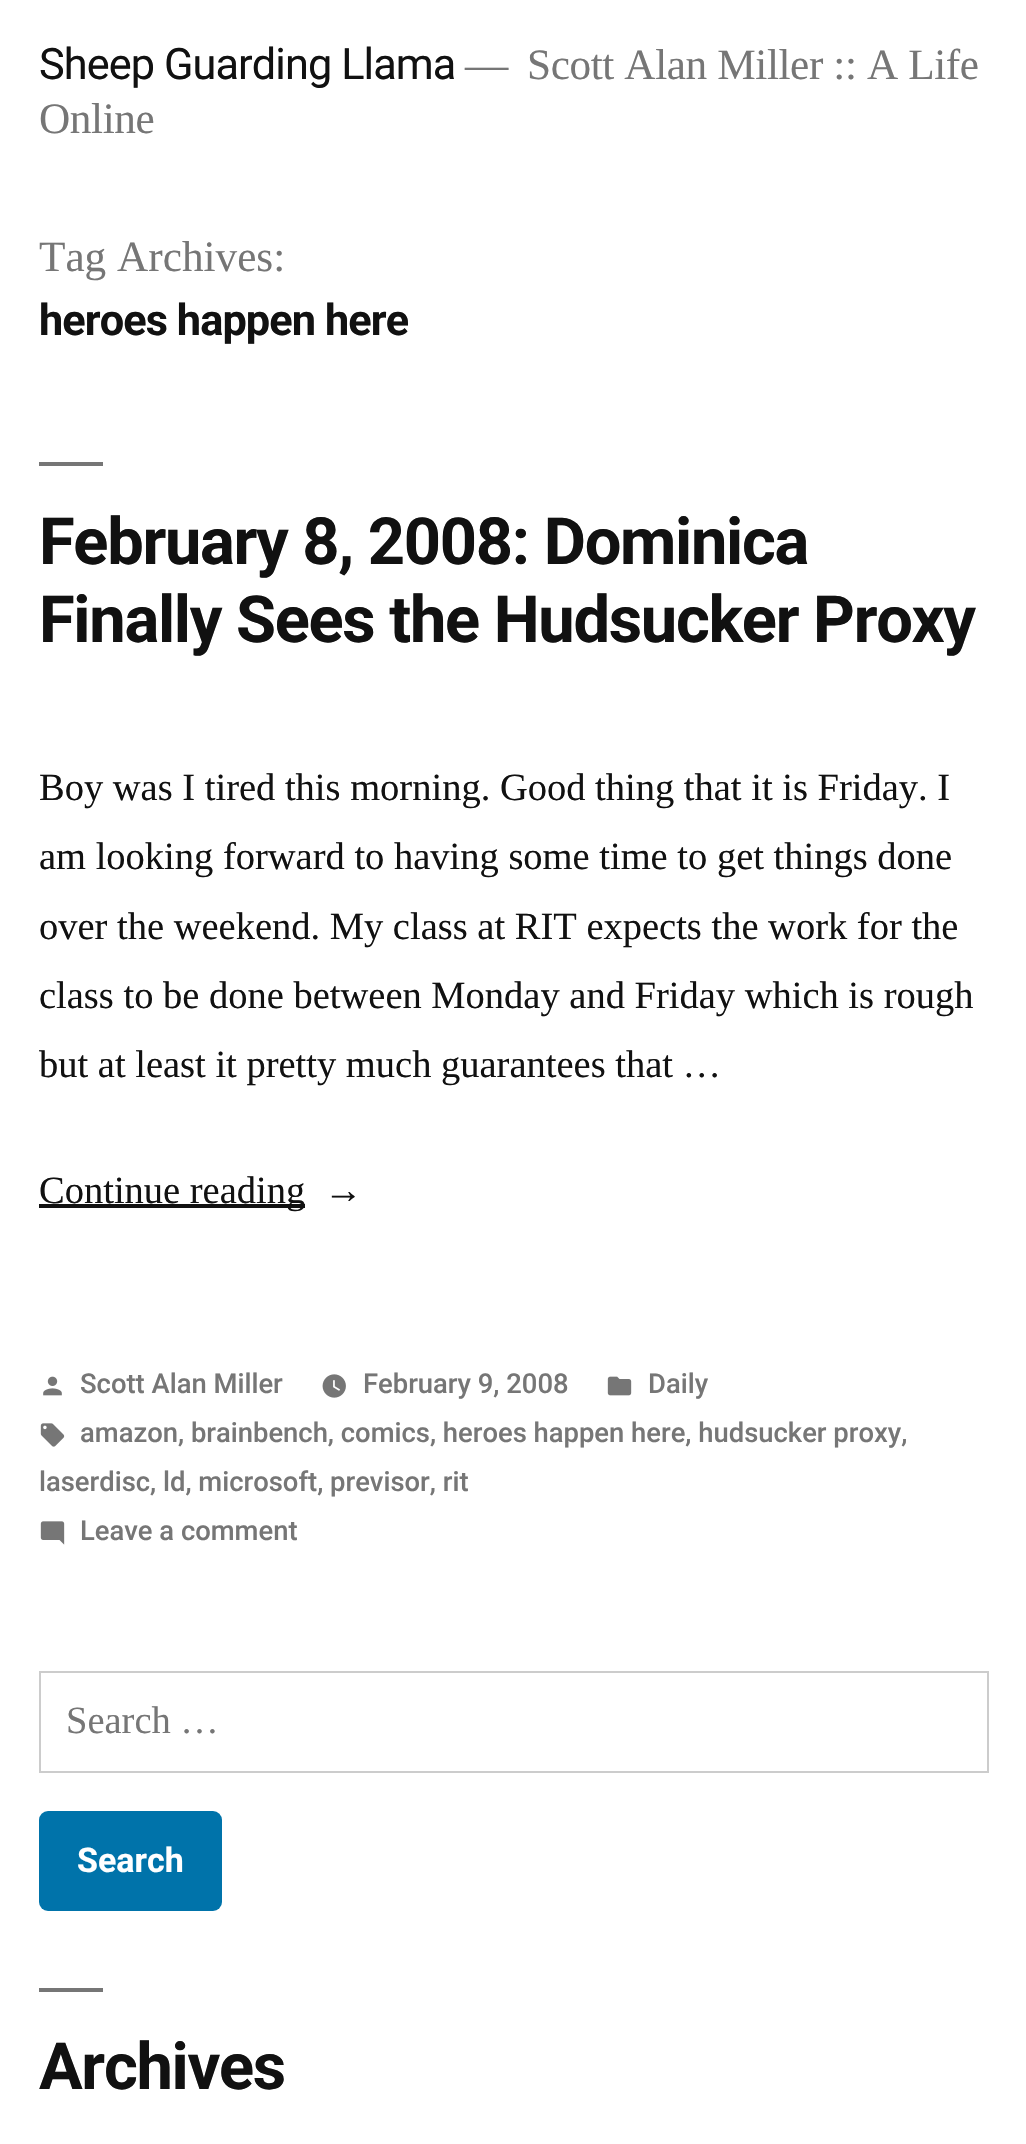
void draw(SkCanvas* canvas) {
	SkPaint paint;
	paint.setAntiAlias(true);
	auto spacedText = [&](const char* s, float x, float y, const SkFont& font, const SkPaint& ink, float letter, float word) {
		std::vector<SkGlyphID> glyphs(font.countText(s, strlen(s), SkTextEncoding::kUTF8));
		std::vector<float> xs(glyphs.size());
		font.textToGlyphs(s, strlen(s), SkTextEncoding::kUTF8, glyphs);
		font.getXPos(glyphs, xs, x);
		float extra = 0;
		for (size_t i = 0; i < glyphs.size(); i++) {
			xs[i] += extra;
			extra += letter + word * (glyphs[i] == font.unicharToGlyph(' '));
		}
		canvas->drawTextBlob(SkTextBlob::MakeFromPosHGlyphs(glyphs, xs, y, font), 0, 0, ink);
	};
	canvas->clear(0xffffffff);
	SkFont f1(fontMgr->matchFamilyStyle("Roboto", SkFontStyle::Normal()), 43.25);
	f1.setSubpixel(true);
	paint.setColor(0xff111111);
	spacedText("Sheep Guarding Llama", 39, 79, f1, paint, -0.9, 0);
	SkFont f2(fontMgr->matchFamilyStyle("Liberation Serif", SkFontStyle::Normal()), 43.25);
	f2.setSubpixel(true);
	paint.setColor(0xff767676);
	spacedText("—", 465, 79, f2, paint, -0.4, 0);
	spacedText("Scott Alan Miller :: A Life", 527, 79, f2, paint, -0.4, 0);
	spacedText("Online", 39, 133, f2, paint, -0.4, 0);
	canvas->drawString("Tag Archives:", 39, 271, f2, paint);
	SkFont f3(fontMgr->matchFamilyStyle("Roboto", SkFontStyle::Bold()), 43.25);
	f3.setSubpixel(true);
	paint.setColor(0xff111111);
	spacedText("heroes happen here", 39, 335, f3, paint, -0.9, 0);
	paint.setColor(0xff767676);
	canvas->drawRect(SkRect::MakeXYWH(39, 462, 64, 4), paint);
	SkFont f4(fontMgr->matchFamilyStyle("Roboto", SkFontStyle::Bold()), 65);
	f4.setSubpixel(true);
	paint.setColor(0xff111111);
	spacedText("February 8, 2008: Dominica", 39, 564, f4, paint, -1.3, 0);
	spacedText("Finally Sees the Hudsucker Proxy", 39, 642, f4, paint, -1.3, 0);
	SkFont f5(fontMgr->matchFamilyStyle("Liberation Serif", SkFontStyle::Normal()), 38.5);
	f5.setSubpixel(true);
	canvas->drawString("Boy was I tired this morning. Good thing that it is Friday. I", 39, 800, f5, paint);
	canvas->drawString("am looking forward to having some time to get things done", 39, 869, f5, paint);
	canvas->drawString("over the weekend. My class at RIT expects the work for the", 39, 939, f5, paint);
	canvas->drawString("class to be done between Monday and Friday which is rough", 39, 1008, f5, paint);
	canvas->drawString("but at least it pretty much guarantees that …", 39, 1077, f5, paint);
	canvas->drawRect(SkRect::MakeXYWH(39, 1204, 266, 4), paint);
	canvas->drawString("Continue reading", 39, 1203, f5, paint);
	canvas->drawString("→", 324, 1203, f5, paint);
	canvas->drawImageRect(SkImages::DeferredFromEncodedData(SkData::MakeFromFileName("img1.png")), SkRect::MakeXYWH(43, 1376, 19, 20), SkSamplingOptions());
	SkFont f6(fontMgr->matchFamilyStyle("Roboto", SkFontStyle(500, SkFontStyle::kNormal_Width, SkFontStyle::kUpright_Slant)), 27.4);
	f6.setSubpixel(true);
	paint.setColor(0xff767676);
	canvas->drawString("Scott Alan Miller", 80, 1393, f6, paint);
	canvas->drawImageRect(SkImages::DeferredFromEncodedData(SkData::MakeFromFileName("img2.png")), SkRect::MakeXYWH(322, 1374, 24, 24), SkSamplingOptions());
	canvas->drawString("February 9, 2008", 363, 1393, f6, paint);
	canvas->drawImageRect(SkImages::DeferredFromEncodedData(SkData::MakeFromFileName("img3.png")), SkRect::MakeXYWH(607, 1376, 25, 20), SkSamplingOptions());
	canvas->drawString("Daily", 648, 1393, f6, paint);
	canvas->drawImageRect(SkImages::DeferredFromEncodedData(SkData::MakeFromFileName("img4.png")), SkRect::MakeXYWH(40, 1423, 25, 24), SkSamplingOptions());
	canvas->drawString("amazon, brainbench, comics, heroes happen here, hudsucker proxy,", 80, 1442, f6, paint);
	canvas->drawString("laserdisc, ld, microsoft, previsor, rit", 39, 1491, f6, paint);
	canvas->drawImageRect(SkImages::DeferredFromEncodedData(SkData::MakeFromFileName("img5.png")), SkRect::MakeXYWH(40, 1521, 25, 24), SkSamplingOptions());
	canvas->drawString("Leave a comment", 80, 1540, f6, paint);
	paint.setStroke(true);
	paint.setStrokeWidth(2);
	paint.setColor(0xffcccccc);
	canvas->drawRect(SkRect::MakeXYWH(40, 1672, 948, 100), paint);
	paint.setStroke(false);
	paint.setColor(0xff767676);
	canvas->drawString("Search …", 66, 1733, f5, paint);
	paint.setColor(0xff0073aa);
	canvas->drawRoundRect(SkRect::MakeXYWH(39, 1811, 183, 100), 9, 9, paint);
	SkFont f7(fontMgr->matchFamilyStyle("Roboto", SkFontStyle::Bold()), 34);
	f7.setSubpixel(true);
	paint.setColor(0xffffffff);
	canvas->drawString("Search", 77, 1872, f7, paint);
	paint.setColor(0xff767676);
	canvas->drawRect(SkRect::MakeXYWH(39, 1988, 64, 4), paint);
	paint.setColor(0xff111111);
	spacedText("Archives", 39, 2089, f4, paint, -1.3, 0);
}
